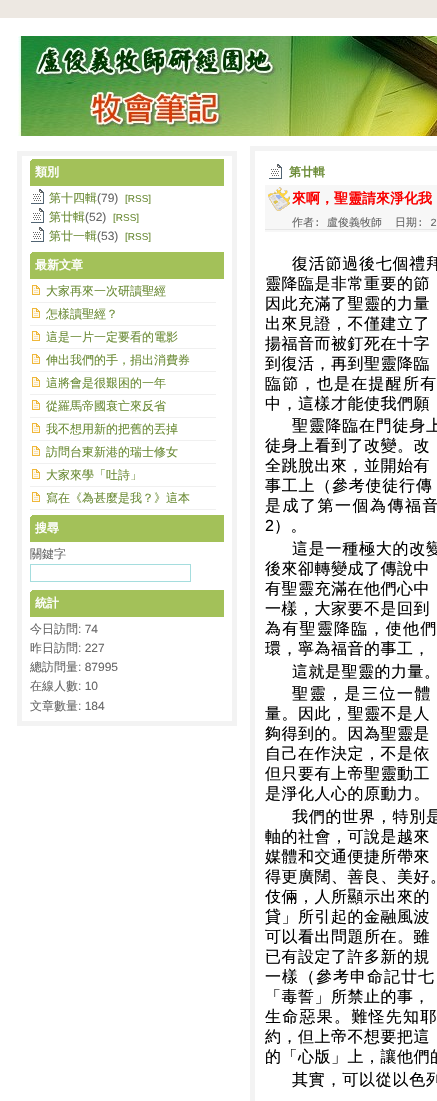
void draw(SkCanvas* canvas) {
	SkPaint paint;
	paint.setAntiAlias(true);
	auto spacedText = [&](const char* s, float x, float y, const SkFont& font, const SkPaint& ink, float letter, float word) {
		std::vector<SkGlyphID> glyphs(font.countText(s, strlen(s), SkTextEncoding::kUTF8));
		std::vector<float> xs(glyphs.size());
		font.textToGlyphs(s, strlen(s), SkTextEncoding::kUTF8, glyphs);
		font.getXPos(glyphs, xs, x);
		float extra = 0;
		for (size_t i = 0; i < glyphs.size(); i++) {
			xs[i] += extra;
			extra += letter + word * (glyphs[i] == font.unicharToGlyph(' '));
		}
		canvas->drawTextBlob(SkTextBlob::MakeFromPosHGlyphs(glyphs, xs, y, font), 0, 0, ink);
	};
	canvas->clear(0xffede8e2);
	paint.setColor(0xffffffff);
	canvas->drawRect(SkRect::MakeXYWH(0, 18, 437, 1083), paint);
	canvas->drawImageRect(SkImages::DeferredFromEncodedData(SkData::MakeFromFileName("img1.png")), SkRect::MakeXYWH(18, 36, 419, 100), SkSamplingOptions());
	paint.setColor(0xfff3f3f3);
	canvas->drawRect(SkRect::MakeXYWH(17, 151, 220, 5), paint);
	canvas->drawRect(SkRect::MakeXYWH(232, 151, 5, 575), paint);
	canvas->drawRect(SkRect::MakeXYWH(17, 151, 5, 575), paint);
	paint.setColor(0xffa3c159);
	canvas->drawRect(SkRect::MakeXYWH(30, 159, 194, 27), paint);
	canvas->drawImageRect(SkImages::DeferredFromEncodedData(SkData::MakeFromFileName("img2.png")), SkRect::MakeXYWH(30, 159, 2, 2), SkSamplingOptions());
	SkFont f1(fontMgr->matchFamilyStyle("WenQuanYi Zen Hei", SkFontStyle::Bold()), 12);
	f1.setSubpixel(true);
	paint.setColor(0xffffffff);
	canvas->drawString("類別", 35, 176, f1, paint);
	canvas->drawImageRect(SkImages::DeferredFromEncodedData(SkData::MakeFromFileName("img3.png")), SkRect::MakeXYWH(31, 189, 13, 15), SkSamplingOptions());
	SkFont f2(fontMgr->matchFamilyStyle("WenQuanYi Zen Hei", SkFontStyle(500, SkFontStyle::kNormal_Width, SkFontStyle::kUpright_Slant)), 12);
	f2.setSubpixel(true);
	paint.setColor(0xff6c8c37);
	canvas->drawString("第十四輯", 49, 202, f2, paint);
	SkFont f3(fontMgr->matchFamilyStyle("Liberation Sans", SkFontStyle::Normal()), 12);
	f3.setSubpixel(true);
	paint.setColor(0xff666666);
	canvas->drawString("(79)", 97, 202, f3, paint);
	SkFont f4(fontMgr->matchFamilyStyle("Liberation Sans", SkFontStyle::Normal()), 10);
	f4.setSubpixel(true);
	paint.setColor(0xff6c8c37);
	canvas->drawString("[RSS]", 125, 202, f4, paint);
	canvas->drawImageRect(SkImages::DeferredFromEncodedData(SkData::MakeFromFileName("img3.png")), SkRect::MakeXYWH(31, 208, 13, 15), SkSamplingOptions());
	canvas->drawString("第廿輯", 49, 221, f2, paint);
	paint.setColor(0xff666666);
	canvas->drawString("(52)", 85, 221, f3, paint);
	paint.setColor(0xff6c8c37);
	canvas->drawString("[RSS]", 113, 221, f4, paint);
	canvas->drawImageRect(SkImages::DeferredFromEncodedData(SkData::MakeFromFileName("img3.png")), SkRect::MakeXYWH(31, 227, 13, 15), SkSamplingOptions());
	canvas->drawString("第廿一輯", 49, 240, f2, paint);
	paint.setColor(0xff666666);
	canvas->drawString("(53)", 97, 240, f3, paint);
	paint.setColor(0xff6c8c37);
	canvas->drawString("[RSS]", 125, 240, f4, paint);
	paint.setColor(0xffa3c159);
	canvas->drawRect(SkRect::MakeXYWH(30, 252, 194, 27), paint);
	canvas->drawImageRect(SkImages::DeferredFromEncodedData(SkData::MakeFromFileName("img2.png")), SkRect::MakeXYWH(30, 252, 2, 2), SkSamplingOptions());
	paint.setColor(0xffffffff);
	canvas->drawString("最新文章", 35, 269, f1, paint);
	canvas->drawImageRect(SkImages::DeferredFromEncodedData(SkData::MakeFromFileName("img4.png")), SkRect::MakeXYWH(32, 285, 8, 10), SkSamplingOptions());
	paint.setColor(0xfff0f0f0);
	canvas->drawRect(SkRect::MakeXYWH(30, 302, 186, 1), paint);
	paint.setColor(0xff6c8c37);
	canvas->drawString("大家再來一次研讀聖經", 46, 295, f2, paint);
	canvas->drawImageRect(SkImages::DeferredFromEncodedData(SkData::MakeFromFileName("img4.png")), SkRect::MakeXYWH(32, 308, 8, 10), SkSamplingOptions());
	paint.setColor(0xfff0f0f0);
	canvas->drawRect(SkRect::MakeXYWH(30, 325, 186, 1), paint);
	paint.setColor(0xff6c8c37);
	canvas->drawString("怎樣讀聖經？", 46, 318, f2, paint);
	canvas->drawImageRect(SkImages::DeferredFromEncodedData(SkData::MakeFromFileName("img4.png")), SkRect::MakeXYWH(32, 331, 8, 10), SkSamplingOptions());
	paint.setColor(0xfff0f0f0);
	canvas->drawRect(SkRect::MakeXYWH(30, 348, 186, 1), paint);
	paint.setColor(0xff6c8c37);
	canvas->drawString("這是一片一定要看的電影", 46, 341, f2, paint);
	canvas->drawImageRect(SkImages::DeferredFromEncodedData(SkData::MakeFromFileName("img4.png")), SkRect::MakeXYWH(32, 354, 8, 10), SkSamplingOptions());
	paint.setColor(0xfff0f0f0);
	canvas->drawRect(SkRect::MakeXYWH(30, 371, 186, 1), paint);
	paint.setColor(0xff6c8c37);
	canvas->drawString("伸出我們的手，捐出消費券", 46, 364, f2, paint);
	canvas->drawImageRect(SkImages::DeferredFromEncodedData(SkData::MakeFromFileName("img4.png")), SkRect::MakeXYWH(32, 377, 8, 10), SkSamplingOptions());
	paint.setColor(0xfff0f0f0);
	canvas->drawRect(SkRect::MakeXYWH(30, 394, 186, 1), paint);
	paint.setColor(0xff6c8c37);
	canvas->drawString("這將會是很艱困的一年", 46, 387, f2, paint);
	canvas->drawImageRect(SkImages::DeferredFromEncodedData(SkData::MakeFromFileName("img4.png")), SkRect::MakeXYWH(32, 400, 8, 10), SkSamplingOptions());
	paint.setColor(0xfff0f0f0);
	canvas->drawRect(SkRect::MakeXYWH(30, 417, 186, 1), paint);
	paint.setColor(0xff6c8c37);
	canvas->drawString("從羅馬帝國衰亡來反省", 46, 410, f2, paint);
	canvas->drawImageRect(SkImages::DeferredFromEncodedData(SkData::MakeFromFileName("img4.png")), SkRect::MakeXYWH(32, 423, 8, 10), SkSamplingOptions());
	paint.setColor(0xfff0f0f0);
	canvas->drawRect(SkRect::MakeXYWH(30, 440, 186, 1), paint);
	paint.setColor(0xff6c8c37);
	canvas->drawString("我不想用新的把舊的丟掉", 46, 433, f2, paint);
	canvas->drawImageRect(SkImages::DeferredFromEncodedData(SkData::MakeFromFileName("img4.png")), SkRect::MakeXYWH(32, 446, 8, 10), SkSamplingOptions());
	paint.setColor(0xfff0f0f0);
	canvas->drawRect(SkRect::MakeXYWH(30, 463, 186, 1), paint);
	paint.setColor(0xff6c8c37);
	canvas->drawString("訪問台東新港的瑞士修女", 46, 456, f2, paint);
	canvas->drawImageRect(SkImages::DeferredFromEncodedData(SkData::MakeFromFileName("img4.png")), SkRect::MakeXYWH(32, 469, 8, 10), SkSamplingOptions());
	paint.setColor(0xfff0f0f0);
	canvas->drawRect(SkRect::MakeXYWH(30, 486, 186, 1), paint);
	paint.setColor(0xff6c8c37);
	canvas->drawString("大家來學「吐詩」", 46, 479, f2, paint);
	canvas->drawImageRect(SkImages::DeferredFromEncodedData(SkData::MakeFromFileName("img4.png")), SkRect::MakeXYWH(32, 492, 8, 10), SkSamplingOptions());
	paint.setColor(0xfff0f0f0);
	canvas->drawRect(SkRect::MakeXYWH(30, 509, 186, 1), paint);
	paint.setColor(0xff6c8c37);
	canvas->drawString("寫在《為甚麼是我？》這本", 46, 502, f2, paint);
	paint.setColor(0xffa3c159);
	canvas->drawRect(SkRect::MakeXYWH(30, 515, 194, 27), paint);
	canvas->drawImageRect(SkImages::DeferredFromEncodedData(SkData::MakeFromFileName("img2.png")), SkRect::MakeXYWH(30, 515, 2, 2), SkSamplingOptions());
	paint.setColor(0xffffffff);
	canvas->drawString("搜尋", 35, 532, f1, paint);
	paint.setColor(0xff666666);
	canvas->drawString("關鍵字", 30, 558, f2, paint);
	paint.setStroke(true);
	paint.setStrokeWidth(1);
	paint.setColor(0xffa5ddde);
	canvas->drawRect(SkRect::MakeXYWH(30.5, 564.5, 160, 17), paint);
	paint.setStroke(false);
	paint.setColor(0xffa3c159);
	canvas->drawRect(SkRect::MakeXYWH(30, 590, 194, 27), paint);
	canvas->drawImageRect(SkImages::DeferredFromEncodedData(SkData::MakeFromFileName("img2.png")), SkRect::MakeXYWH(30, 590, 2, 2), SkSamplingOptions());
	paint.setColor(0xffffffff);
	canvas->drawString("統計", 35, 607, f1, paint);
	paint.setColor(0xff666666);
	canvas->drawString("今日訪問", 30, 633, f2, paint);
	canvas->drawString(": 74", 78, 633, f3, paint);
	canvas->drawString("昨日訪問", 30, 652, f2, paint);
	canvas->drawString(": 227", 78, 652, f3, paint);
	canvas->drawString("總訪問量", 30, 671, f2, paint);
	canvas->drawString(": 87995", 78, 671, f3, paint);
	canvas->drawString("在線人數", 30, 690, f2, paint);
	canvas->drawString(": 10", 78, 690, f3, paint);
	canvas->drawString("文章數量", 30, 710, f2, paint);
	canvas->drawString(": 184", 78, 710, f3, paint);
	paint.setColor(0xfff3f3f3);
	canvas->drawRect(SkRect::MakeXYWH(22, 721, 210, 5), paint);
	paint.setStroke(true);
	paint.setStrokeWidth(5);
	canvas->drawRect(SkRect::MakeXYWH(252.5, 148.5, 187, 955), paint);
	canvas->drawImageRect(SkImages::DeferredFromEncodedData(SkData::MakeFromFileName("img3.png")), SkRect::MakeXYWH(269, 164, 13, 15), SkSamplingOptions());
	paint.setStroke(false);
	paint.setColor(0xff6c8c37);
	canvas->drawString("第廿輯", 289, 176, f1, paint);
	canvas->drawImageRect(SkImages::DeferredFromEncodedData(SkData::MakeFromFileName("img5.png")), SkRect::MakeXYWH(265, 185, 172, 47), SkSamplingOptions());
	canvas->drawImageRect(SkImages::DeferredFromEncodedData(SkData::MakeFromFileName("img6.png")), SkRect::MakeXYWH(268, 187, 22, 24), SkSamplingOptions());
	SkFont f5(fontMgr->matchFamilyStyle("WenQuanYi Zen Hei", SkFontStyle::Bold()), 14);
	f5.setSubpixel(true);
	paint.setColor(0xfffa0000);
	canvas->drawString("來啊，聖靈請來淨化我", 292, 203, f5, paint);
	SkFont f6(fontMgr->matchFamilyStyle("WenQuanYi Zen Hei", SkFontStyle(500, SkFontStyle::kNormal_Width, SkFontStyle::kUpright_Slant)), 11);
	f6.setSubpixel(true);
	paint.setColor(0xff666666);
	canvas->drawString("作者", 292, 226, f6, paint);
	SkFont f7(fontMgr->matchFamilyStyle("Liberation Mono", SkFontStyle::Normal()), 11);
	f7.setSubpixel(true);
	canvas->drawString(":", 314, 226, f7, paint);
	canvas->drawString("盧俊義牧師", 327, 226, f6, paint);
	canvas->drawString("日期", 395, 226, f6, paint);
	canvas->drawString(": 2", 417, 226, f7, paint);
	SkFont f8(fontMgr->matchFamilyStyle("WenQuanYi Zen Hei", SkFontStyle(500, SkFontStyle::kNormal_Width, SkFontStyle::kUpright_Slant)), 16);
	f8.setSubpixel(true);
	paint.setColor(0xff000000);
	spacedText("復活節過後七個禮拜", 292, 269, f8, paint, 0.75, 0);
	spacedText("靈降臨是非常重要的節", 265, 289, f8, paint, 0.5, 0);
	spacedText("因此充滿了聖靈的力量", 265, 309, f8, paint, 0.5, 0);
	spacedText("出來見證，不僅建立了", 265, 329, f8, paint, 0.5, 0);
	spacedText("揚福音而被釘死在十字", 265, 349, f8, paint, 0.5, 0);
	spacedText("到復活，再到聖靈降臨", 265, 369, f8, paint, 0.5, 0);
	spacedText("臨節，也是在提醒所有", 265, 389, f8, paint, 1.25, 0);
	spacedText("中，這樣才能使我們願", 265, 409, f8, paint, 0.5, 0);
	spacedText("聖靈降臨在門徒身上", 292, 431, f8, paint, 0.75, 0);
	spacedText("徒身上看到了改變。改", 265, 451, f8, paint, 0.5, 0);
	spacedText("全跳脫出來，並開始有", 265, 471, f8, paint, 0.5, 0);
	spacedText("事工上（參考使徒行傳", 265, 491, f8, paint, 0.75, 0);
	spacedText("是成了第一個為傳福音", 265, 511, f8, paint, 1.5, 0);
	SkFont f9(fontMgr->matchFamilyStyle("Liberation Sans", SkFontStyle::Normal()), 16);
	f9.setSubpixel(true);
	spacedText("2", 265, 531, f9, paint, 0.5, 0);
	spacedText("）。", 274, 531, f8, paint, 0.5, 0);
	spacedText("這是一種極大的改變", 292, 554, f8, paint, 0.75, 0);
	spacedText("後來卻轉變成了傳說中", 265, 574, f8, paint, 0.5, 0);
	spacedText("有聖靈充滿在他們心中", 265, 594, f8, paint, 0.5, 0);
	spacedText("一樣，大家要不是回到", 265, 614, f8, paint, 0.5, 0);
	spacedText("為有聖靈降臨，使他們", 265, 634, f8, paint, 1.25, 0);
	spacedText("環，寧為福音的事工，", 265, 654, f8, paint, 0.5, 0);
	spacedText("這就是聖靈的力量。", 292, 677, f8, paint, 0.5, 0);
	spacedText("聖靈，是三位一體", 292, 699, f8, paint, 1.5, 0);
	spacedText("量。因此，聖靈不是人", 265, 719, f8, paint, 0.5, 0);
	spacedText("夠得到的。因為聖靈是", 265, 739, f8, paint, 0.5, 0);
	spacedText("自己在作決定，不是依", 265, 759, f8, paint, 0.5, 0);
	spacedText("但只要有上帝聖靈動工", 265, 779, f8, paint, 0.5, 0);
	spacedText("是淨化人心的原動力。", 265, 799, f8, paint, 0.5, 0);
	spacedText("我們的世界，特別是", 292, 822, f8, paint, 0.75, 0);
	spacedText("軸的社會，可說是越來", 265, 842, f8, paint, 0.5, 0);
	spacedText("媒體和交通便捷所帶來", 265, 862, f8, paint, 0.5, 0);
	spacedText("得更廣闊、善良、美好。", 265, 882, f8, paint, 0.5, 0);
	spacedText("伎倆，人所顯示出來的", 265, 902, f8, paint, 0.5, 0);
	spacedText("貸」所引起的金融風波", 265, 922, f8, paint, 0.5, 0);
	spacedText("可以看出問題所在。雖", 265, 942, f8, paint, 0.5, 0);
	spacedText("已有設定了許多新的規", 265, 962, f8, paint, 0.5, 0);
	spacedText("一樣（參考申命記廿七", 265, 982, f8, paint, 1, 0);
	spacedText("「毒誓」所禁止的事，", 265, 1002, f8, paint, 0.5, 0);
	spacedText("生命惡果。難怪先知耶", 265, 1022, f8, paint, 1.25, 0);
	spacedText("約，但上帝不想要把這", 265, 1042, f8, paint, 0.5, 0);
	spacedText("的「心版」上，讓他們的", 265, 1062, f8, paint, 0.5, 0);
	spacedText("其實，可以從以色列", 292, 1085, f8, paint, 0.75, 0);
}
